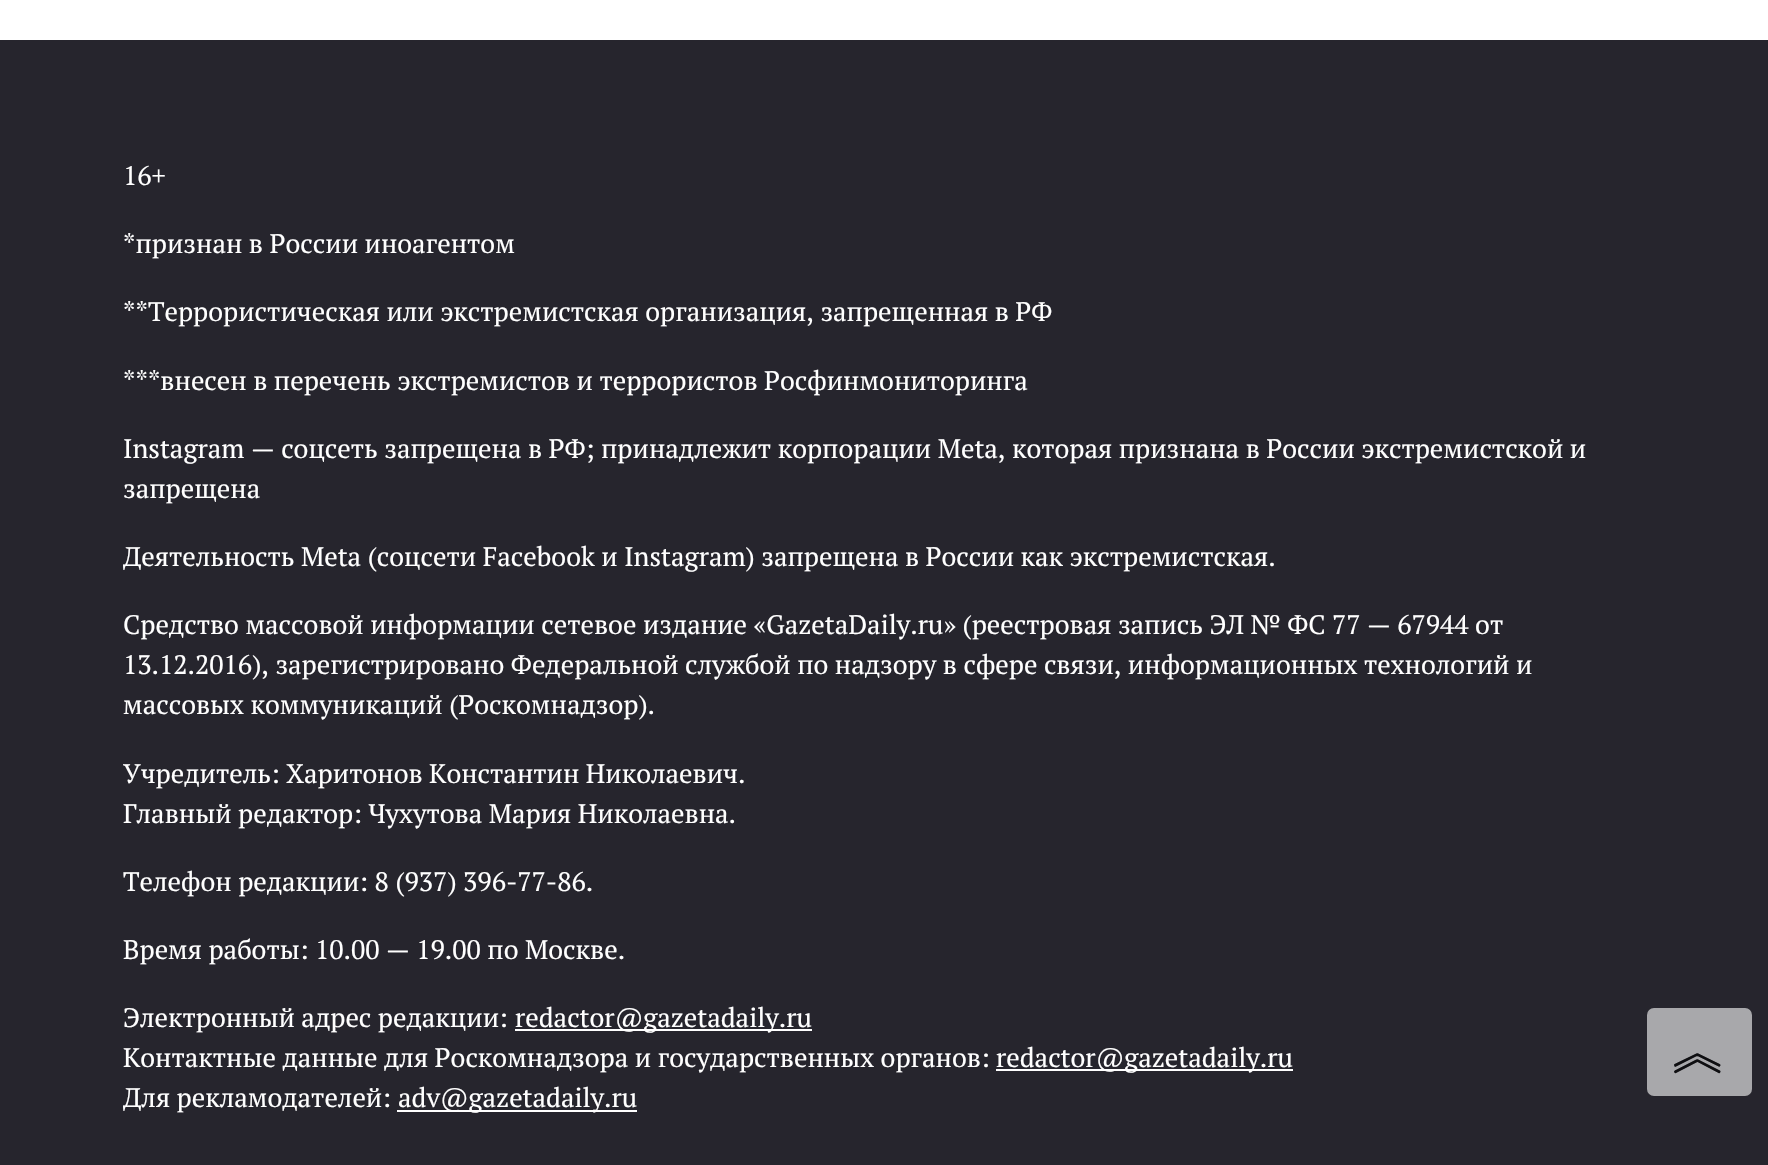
void draw(SkCanvas* canvas) {
	SkPaint paint;
	paint.setAntiAlias(true);
	canvas->clear(0xffffffff);
	paint.setColor(0xff26252d);
	canvas->drawRect(SkRect::MakeXYWH(0, 40, 1768, 1125), paint);
	SkFont f1(fontMgr->matchFamilyStyle("PT Serif", SkFontStyle::Normal()), 26.78);
	f1.setSubpixel(true);
	paint.setColor(0xffffffff);
	canvas->drawString("16+", 123, 185, f1, paint);
	canvas->drawString("*признан в России иноагентом", 123, 253, f1, paint);
	canvas->drawString("**Террористическая или экстремистская организация, запрещенная в РФ", 123, 321, f1, paint);
	canvas->drawString("***внесен в перечень экстремистов и террористов Росфинмониторинга", 123, 390, f1, paint);
	canvas->drawString("Instagram — соцсеть запрещена в РФ; принадлежит корпорации Meta, которая признана в России экстремистской и", 123, 458, f1, paint);
	canvas->drawString("запрещена", 123, 498, f1, paint);
	canvas->drawString("Деятельность Meta (соцсети Facebook и Instagram) запрещена в России как экстремистская.", 123, 566, f1, paint);
	canvas->drawString("Средство массовой информации сетевое издание «GazetaDaily.ru» (реестровая запись ЭЛ № ФС 77 — 67944 от", 123, 634, f1, paint);
	canvas->drawString("13.12.2016), зарегистрировано Федеральной службой по надзору в сфере связи, информационных технологий и", 123, 674, f1, paint);
	canvas->drawString("массовых коммуникаций (Роскомнадзор).", 123, 714, f1, paint);
	canvas->drawString("Учредитель: Харитонов Константин Николаевич.", 123, 783, f1, paint);
	canvas->drawString("Главный редактор: Чухутова Мария Николаевна.", 123, 823, f1, paint);
	canvas->drawString("Телефон редакции: 8 (937) 396-77-86.", 123, 891, f1, paint);
	canvas->drawString("Время работы: 10.00 — 19.00 по Москве.", 123, 959, f1, paint);
	canvas->drawString("Электронный адрес редакции:", 123, 1027, f1, paint);
	canvas->drawRect(SkRect::MakeXYWH(515, 1029, 297, 2), paint);
	canvas->drawString("redactor@gazetadaily.ru", 515, 1027, f1, paint);
	canvas->drawString("Контактные данные для Роскомнадзора и государственных органов:", 123, 1067, f1, paint);
	canvas->drawRect(SkRect::MakeXYWH(996, 1069, 297, 2), paint);
	canvas->drawString("redactor@gazetadaily.ru", 996, 1067, f1, paint);
	canvas->drawString("Для рекламодателей:", 123, 1107, f1, paint);
	canvas->drawRect(SkRect::MakeXYWH(397, 1110, 240, 2), paint);
	canvas->drawString("adv@gazetadaily.ru", 398, 1107, f1, paint);
	paint.setColor(0xffa8a8ab);
	canvas->drawRoundRect(SkRect::MakeXYWH(1647, 1008, 105, 88), 7, 7, paint);
	SkFont f2(fontMgr->matchFamilyStyle("WenQuanYi Zen Hei", SkFontStyle(500, SkFontStyle::kNormal_Width, SkFontStyle::kUpright_Slant)), 56);
	f2.setSubpixel(true);
	paint.setColor(0xff0f0f12);
	canvas->drawString("︽", 1671, 1069, f2, paint);
}
